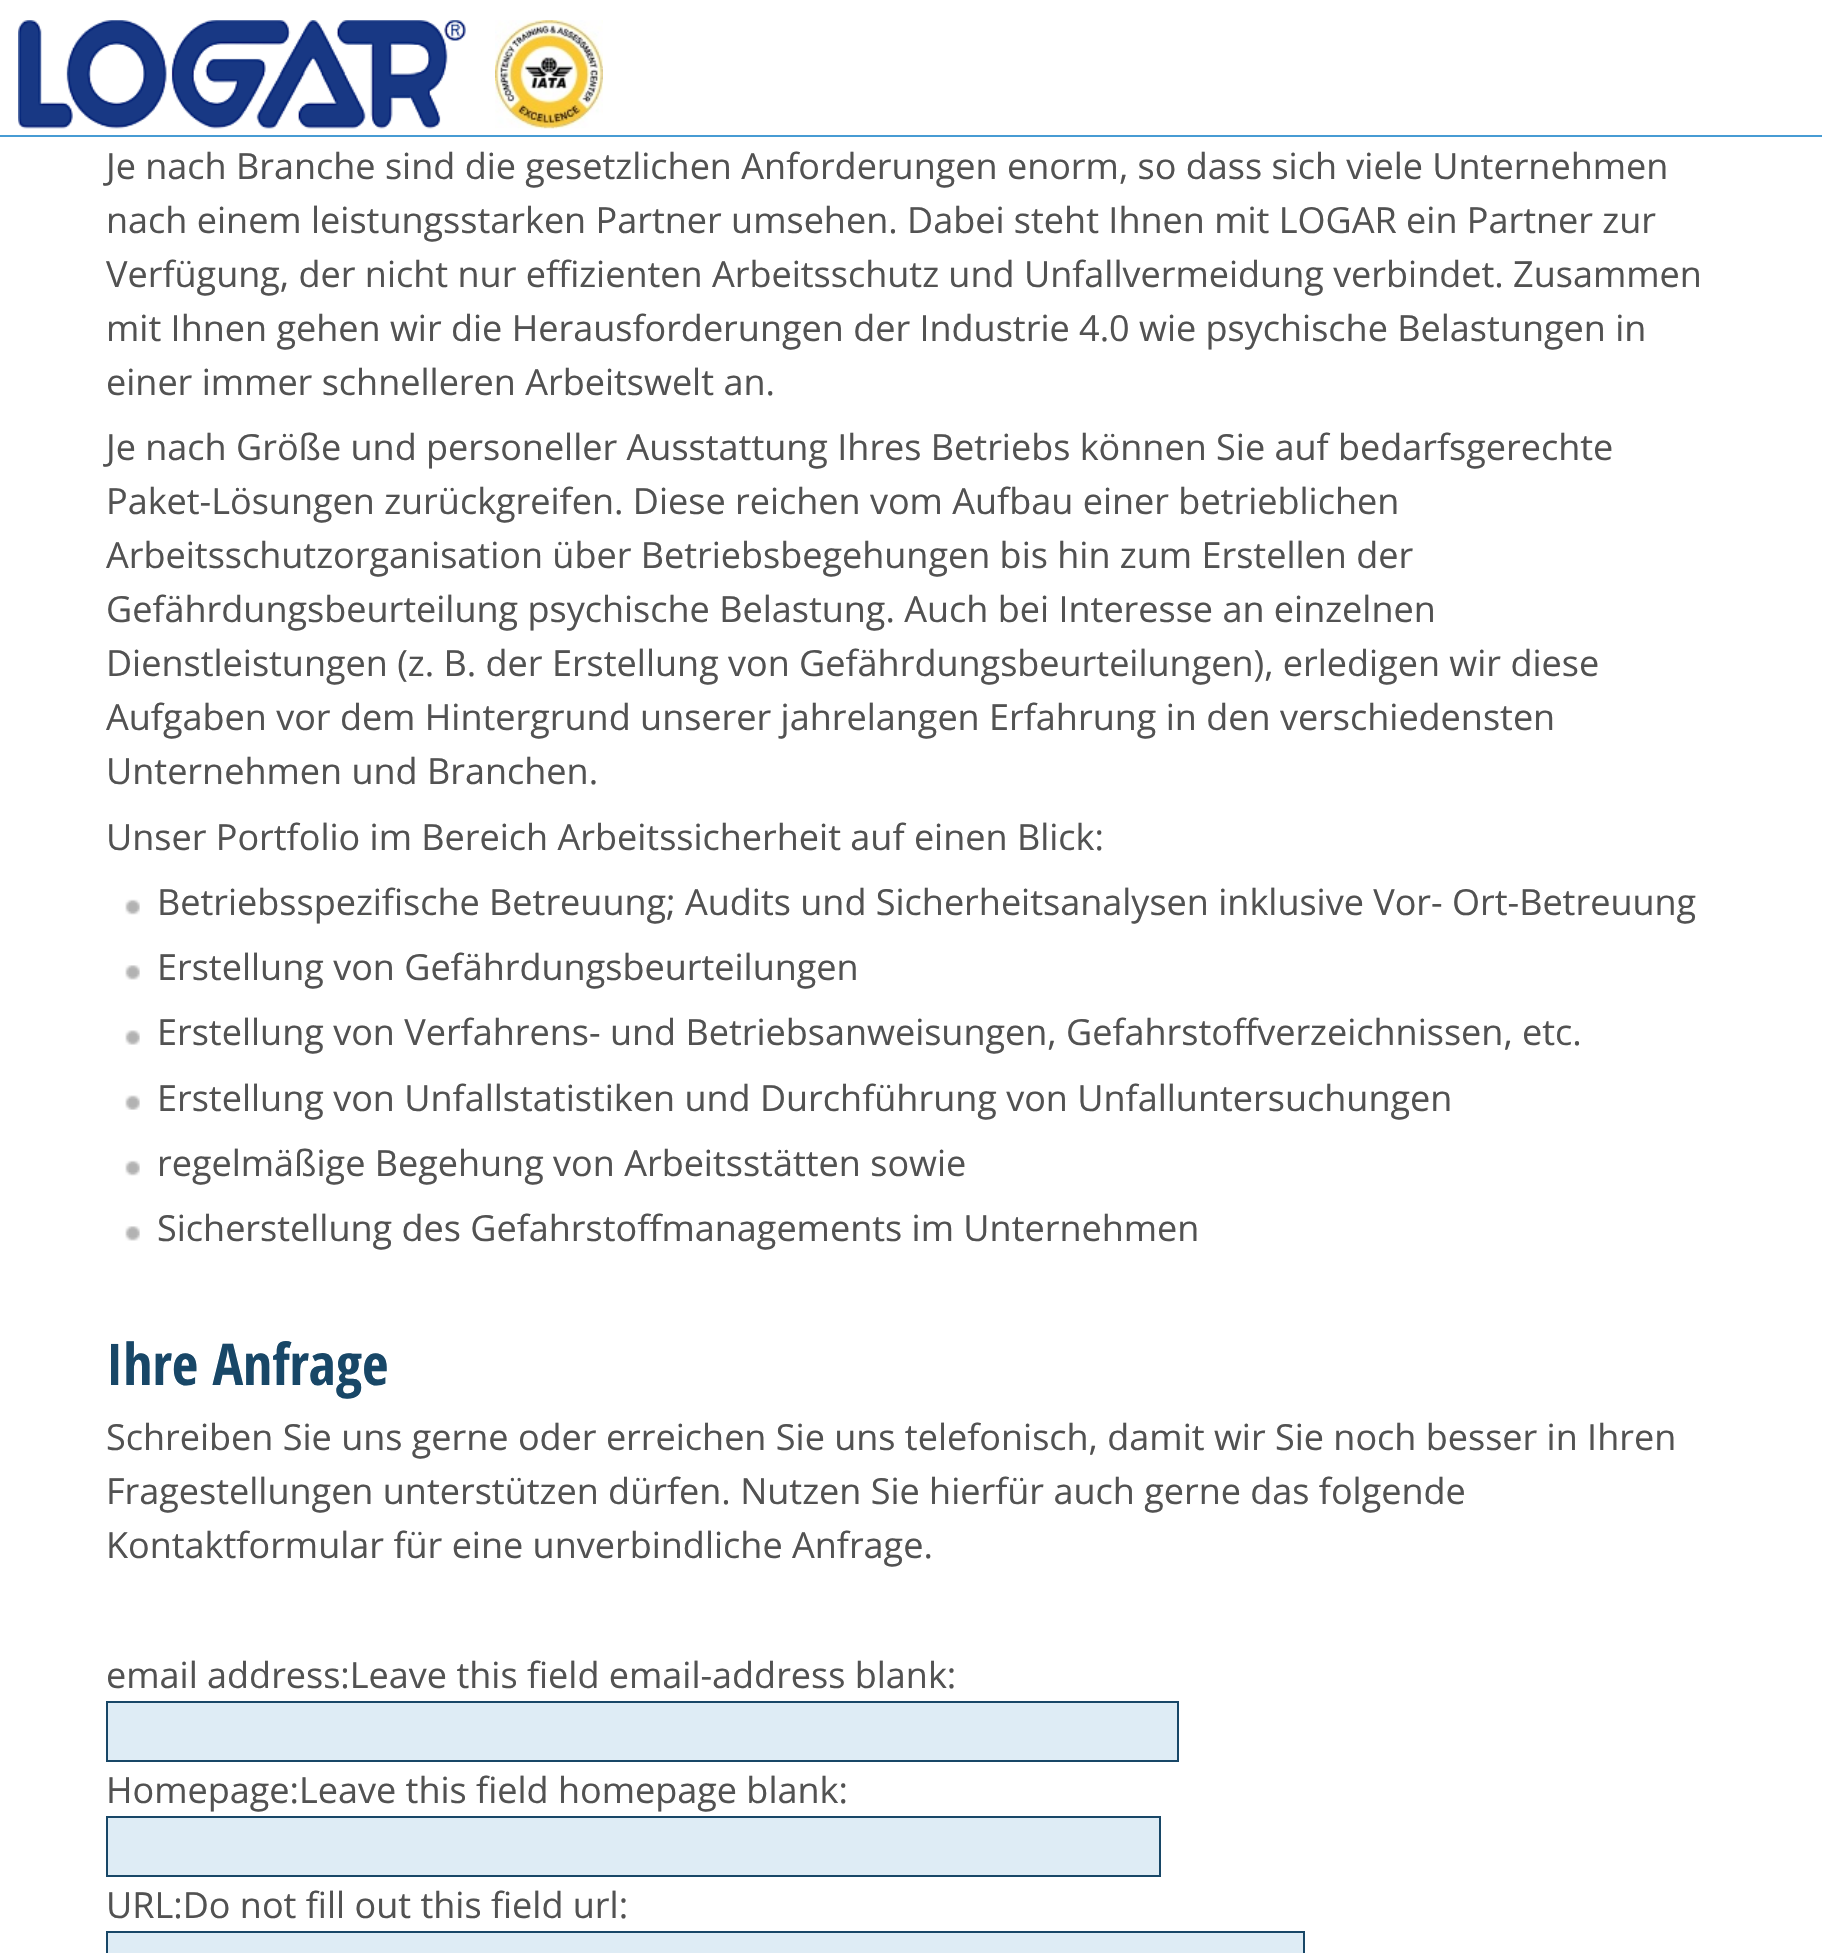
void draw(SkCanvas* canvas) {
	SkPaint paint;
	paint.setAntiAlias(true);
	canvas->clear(0xffffffff);
	paint.setColor(0xff479cd4);
	canvas->drawRect(SkRect::MakeXYWH(0, 135, 1822, 2), paint);
	canvas->drawImageRect(SkImages::DeferredFromEncodedData(SkData::MakeFromFileName("img1.png")), SkRect::MakeXYWH(18, 20, 448, 109), SkSamplingOptions());
	canvas->drawImageRect(SkImages::DeferredFromEncodedData(SkData::MakeFromFileName("img2.png")), SkRect::MakeXYWH(495, 20, 108, 109), SkSamplingOptions());
	SkFont f1(fontMgr->matchFamilyStyle("Open Sans", SkFontStyle::Normal()), 36);
	f1.setSubpixel(true);
	paint.setColor(0xff525252);
	canvas->drawString("Je nach Branche sind die gesetzlichen Anforderungen enorm, so dass sich viele Unternehmen", 106, 179, f1, paint);
	canvas->drawString("nach einem leistungsstarken Partner umsehen. Dabei steht Ihnen mit LOGAR ein Partner zur", 106, 233, f1, paint);
	canvas->drawString("Verfügung, der nicht nur effizienten Arbeitsschutz und Unfallvermeidung verbindet. Zusammen", 106, 287, f1, paint);
	canvas->drawString("mit Ihnen gehen wir die Herausforderungen der Industrie 4.0 wie psychische Belastungen in", 106, 341, f1, paint);
	canvas->drawString("einer immer schnelleren Arbeitswelt an.", 106, 395, f1, paint);
	canvas->drawString("Je nach Größe und personeller Ausstattung Ihres Betriebs können Sie auf bedarfsgerechte", 106, 460, f1, paint);
	canvas->drawString("Paket-Lösungen zurückgreifen. Diese reichen vom Aufbau einer betrieblichen", 106, 514, f1, paint);
	canvas->drawString("Arbeitsschutzorganisation über Betriebsbegehungen bis hin zum Erstellen der", 106, 568, f1, paint);
	canvas->drawString("Gefährdungsbeurteilung psychische Belastung. Auch bei Interesse an einzelnen", 106, 622, f1, paint);
	canvas->drawString("Dienstleistungen (z. B. der Erstellung von Gefährdungsbeurteilungen), erledigen wir diese", 106, 676, f1, paint);
	canvas->drawString("Aufgaben vor dem Hintergrund unserer jahrelangen Erfahrung in den verschiedensten", 106, 730, f1, paint);
	canvas->drawString("Unternehmen und Branchen.", 106, 784, f1, paint);
	canvas->drawString("Unser Portfolio im Bereich Arbeitssicherheit auf einen Blick:", 106, 850, f1, paint);
	canvas->drawImageRect(SkImages::DeferredFromEncodedData(SkData::MakeFromFileName("img3.png")), SkRect::MakeXYWH(125, 899, 15, 16), SkSamplingOptions());
	canvas->drawString("Betriebsspezifische Betreuung; Audits und Sicherheitsanalysen inklusive Vor- Ort-Betreuung", 157, 915, f1, paint);
	canvas->drawImageRect(SkImages::DeferredFromEncodedData(SkData::MakeFromFileName("img4.png")), SkRect::MakeXYWH(125, 965, 15, 15), SkSamplingOptions());
	canvas->drawString("Erstellung von Gefährdungsbeurteilungen", 157, 980, f1, paint);
	canvas->drawImageRect(SkImages::DeferredFromEncodedData(SkData::MakeFromFileName("img5.png")), SkRect::MakeXYWH(125, 1030, 15, 15), SkSamplingOptions());
	canvas->drawString("Erstellung von Verfahrens- und Betriebsanweisungen, Gefahrstoffverzeichnissen, etc.", 157, 1045, f1, paint);
	canvas->drawImageRect(SkImages::DeferredFromEncodedData(SkData::MakeFromFileName("img6.png")), SkRect::MakeXYWH(125, 1095, 15, 15), SkSamplingOptions());
	canvas->drawString("Erstellung von Unfallstatistiken und Durchführung von Unfalluntersuchungen", 157, 1111, f1, paint);
	canvas->drawImageRect(SkImages::DeferredFromEncodedData(SkData::MakeFromFileName("img3.png")), SkRect::MakeXYWH(125, 1160, 15, 16), SkSamplingOptions());
	canvas->drawString("regelmäßige Begehung von Arbeitsstätten sowie", 157, 1176, f1, paint);
	canvas->drawImageRect(SkImages::DeferredFromEncodedData(SkData::MakeFromFileName("img4.png")), SkRect::MakeXYWH(125, 1226, 15, 15), SkSamplingOptions());
	canvas->drawString("Sicherstellung des Gefahrstoffmanagements im Unternehmen", 157, 1241, f1, paint);
	SkFont f2(fontMgr->matchFamilyStyle("Open Sans Condensed", SkFontStyle::Bold()), 57.5);
	f2.setSubpixel(true);
	paint.setColor(0xff184767);
	canvas->drawString("Ihre Anfrage", 106, 1385, f2, paint);
	paint.setColor(0xff525252);
	canvas->drawString("Schreiben Sie uns gerne oder erreichen Sie uns telefonisch, damit wir Sie noch besser in Ihren", 106, 1450, f1, paint);
	canvas->drawString("Fragestellungen unterstützen dürfen. Nutzen Sie hierfür auch gerne das folgende", 106, 1504, f1, paint);
	canvas->drawString("Kontaktformular für eine unverbindliche Anfrage.", 106, 1558, f1, paint);
	canvas->drawString("email address:Leave this field email-address blank:", 106, 1688, f1, paint);
	paint.setColor(0xffdeecf5);
	canvas->drawRect(SkRect::MakeXYWH(107, 1702, 1071, 59), paint);
	paint.setStroke(true);
	paint.setStrokeWidth(2);
	paint.setColor(0xff184767);
	canvas->drawRect(SkRect::MakeXYWH(107, 1702, 1071, 59), paint);
	paint.setStroke(false);
	paint.setColor(0xff525252);
	canvas->drawString("Homepage:Leave this field homepage blank:", 106, 1803, f1, paint);
	paint.setColor(0xffdeecf5);
	canvas->drawRect(SkRect::MakeXYWH(107, 1817, 1053, 59), paint);
	paint.setStroke(true);
	paint.setColor(0xff184767);
	canvas->drawRect(SkRect::MakeXYWH(107, 1817, 1053, 59), paint);
	paint.setStroke(false);
	paint.setColor(0xff525252);
	canvas->drawString("URL:Do not fill out this field url:", 106, 1918, f1, paint);
	paint.setColor(0xffdeecf5);
	canvas->drawRect(SkRect::MakeXYWH(107, 1932, 1197, 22), paint);
	paint.setStroke(true);
	paint.setColor(0xff184767);
	canvas->drawRect(SkRect::MakeXYWH(107, 1932, 1197, 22), paint);
}
